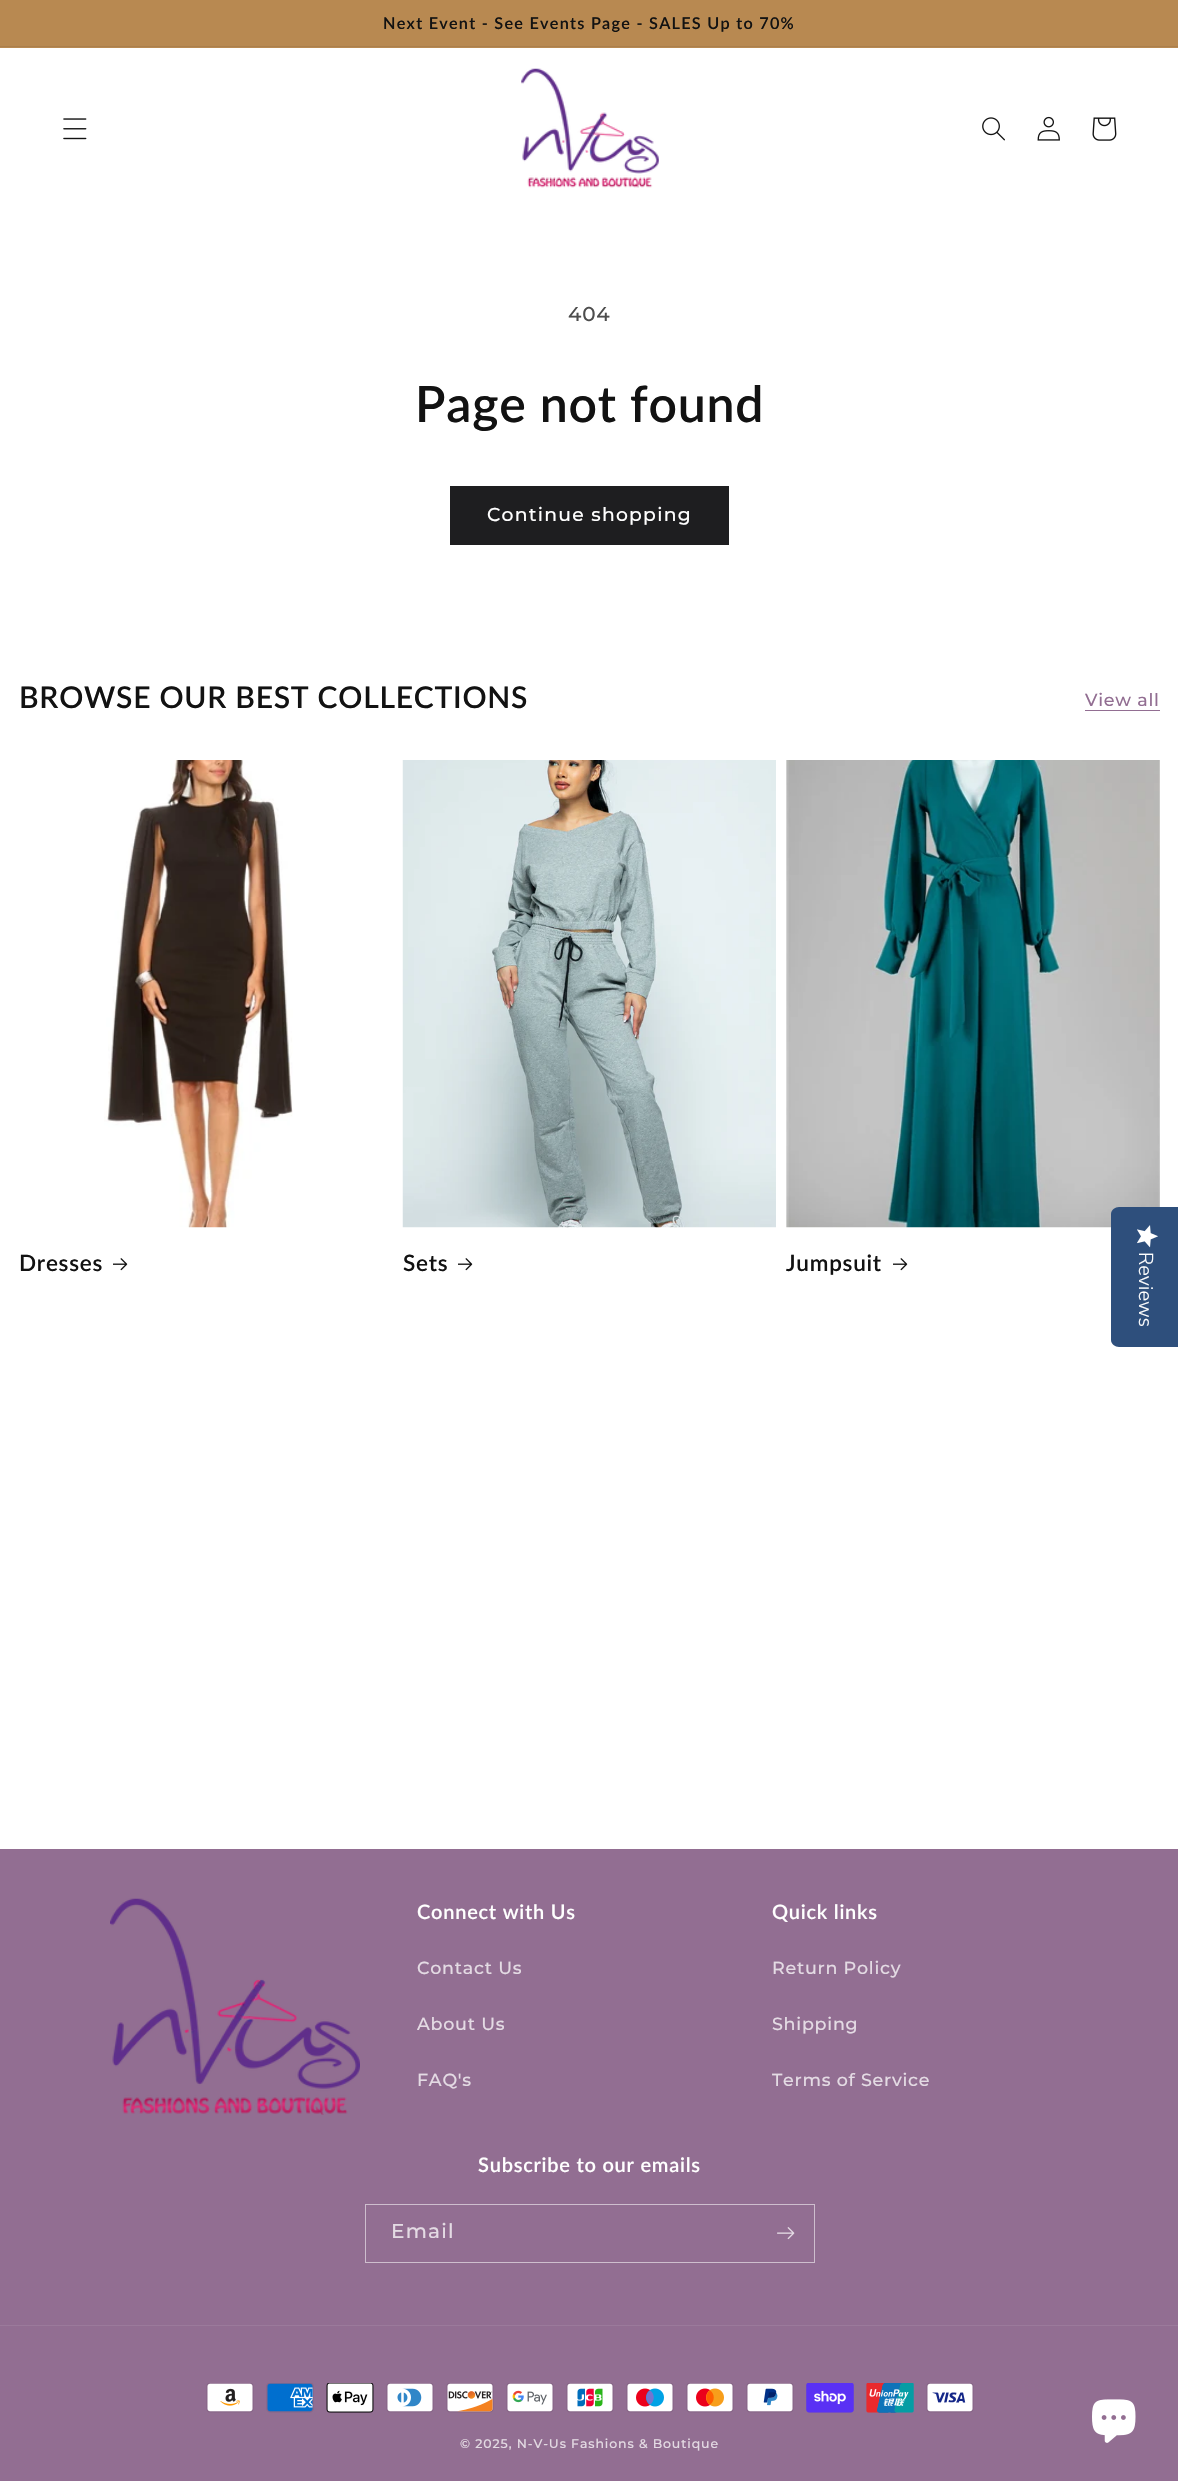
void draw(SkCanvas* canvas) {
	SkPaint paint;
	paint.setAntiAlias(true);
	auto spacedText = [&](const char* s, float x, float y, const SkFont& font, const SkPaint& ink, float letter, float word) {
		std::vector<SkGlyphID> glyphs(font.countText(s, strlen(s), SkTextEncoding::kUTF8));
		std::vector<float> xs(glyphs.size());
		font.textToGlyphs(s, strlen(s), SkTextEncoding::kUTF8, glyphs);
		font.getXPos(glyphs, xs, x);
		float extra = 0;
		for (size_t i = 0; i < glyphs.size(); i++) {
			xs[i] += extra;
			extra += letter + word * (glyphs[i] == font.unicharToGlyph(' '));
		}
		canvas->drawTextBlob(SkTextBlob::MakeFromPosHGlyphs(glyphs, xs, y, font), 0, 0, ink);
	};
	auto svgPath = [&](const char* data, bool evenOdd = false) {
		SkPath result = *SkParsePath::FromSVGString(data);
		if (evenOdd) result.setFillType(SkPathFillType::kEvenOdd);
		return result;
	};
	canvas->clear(0xffffffff);
	paint.setColor(0xffb88951);
	canvas->drawRect(SkRect::MakeXYWH(0, 0, 1178, 48), paint);
	paint.setColor(0xffab7f4c);
	canvas->drawRect(SkRect::MakeXYWH(0, 46, 1178, 1), paint);
	SkFont f1(fontMgr->matchFamilyStyle("Lato", SkFontStyle(600, SkFontStyle::kNormal_Width, SkFontStyle::kUpright_Slant)), 16.25);
	f1.setSubpixel(true);
	paint.setColor(0xff121212);
	spacedText("Next Event - See Events Page - SALES Up to 70%", 383, 29, f1, paint, 1.25, 0);
	canvas->drawImageRect(SkImages::DeferredFromEncodedData(SkData::MakeFromFileName("img1.png")), SkRect::MakeXYWH(63, 118, 24, 22), SkSamplingOptions());
	canvas->drawImageRect(SkImages::DeferredFromEncodedData(SkData::MakeFromFileName("img2.png")), SkRect::MakeXYWH(521, 68, 138, 120), SkSamplingOptions());
	canvas->drawImageRect(SkImages::DeferredFromEncodedData(SkData::MakeFromFileName("img3.png")), SkRect::MakeXYWH(982, 117, 23, 24), SkSamplingOptions());
	canvas->drawImageRect(SkImages::DeferredFromEncodedData(SkData::MakeFromFileName("img4.png")), SkRect::MakeXYWH(1037, 116, 23, 25), SkSamplingOptions());
	canvas->drawImageRect(SkImages::DeferredFromEncodedData(SkData::MakeFromFileName("img5.png")), SkRect::MakeXYWH(1092, 117, 25, 24), SkSamplingOptions());
	SkFont f2(fontMgr->matchFamilyStyle("Montserrat", SkFontStyle(500, SkFontStyle::kNormal_Width, SkFontStyle::kUpright_Slant)), 20);
	f2.setSubpixel(true);
	paint.setColor(0xff4d4d4d);
	spacedText("404", 568, 321, f2, paint, 0.75, 0);
	SkFont f3(fontMgr->matchFamilyStyle("Lato", SkFontStyle(600, SkFontStyle::kNormal_Width, SkFontStyle::kUpright_Slant)), 50);
	f3.setSubpixel(true);
	paint.setColor(0xff121212);
	spacedText("Page not found", 415, 422, f3, paint, 0.75, 0);
	paint.setColor(0xff1e1e20);
	canvas->drawRect(SkRect::MakeXYWH(450, 486, 279, 59), paint);
	SkFont f4(fontMgr->matchFamilyStyle("Montserrat", SkFontStyle(500, SkFontStyle::kNormal_Width, SkFontStyle::kUpright_Slant)), 18.75);
	f4.setSubpixel(true);
	paint.setColor(0xffffffff);
	spacedText("Continue shopping", 487, 521, f4, paint, 1.25, 0);
	SkFont f5(fontMgr->matchFamilyStyle("Lato", SkFontStyle(600, SkFontStyle::kNormal_Width, SkFontStyle::kUpright_Slant)), 30);
	f5.setSubpixel(true);
	paint.setColor(0xff121212);
	spacedText("BROWSE OUR BEST COLLECTIONS", 19, 708, f5, paint, 0.75, 0);
	SkFont f6(fontMgr->matchFamilyStyle("Montserrat", SkFontStyle(500, SkFontStyle::kNormal_Width, SkFontStyle::kUpright_Slant)), 17.5);
	f6.setSubpixel(true);
	paint.setColor(0xff926e92);
	spacedText("View all", 1085, 706, f6, paint, 0.75, 0);
	canvas->drawRect(SkRect::MakeXYWH(1085, 710, 75, 1), paint);
	canvas->drawImageRect(SkImages::DeferredFromEncodedData(SkData::MakeFromFileName("img6.png")), SkRect::MakeXYWH(104, 760, 189, 468), SkSamplingOptions());
	SkFont f7(fontMgr->matchFamilyStyle("Lato", SkFontStyle(600, SkFontStyle::kNormal_Width, SkFontStyle::kUpright_Slant)), 22.5);
	f7.setSubpixel(true);
	paint.setColor(0xff121212);
	spacedText("Dresses", 19, 1271, f7, paint, 0.75, 0);
	canvas->drawImageRect(SkImages::DeferredFromEncodedData(SkData::MakeFromFileName("img7.png")), SkRect::MakeXYWH(113, 1258, 15, 13), SkSamplingOptions());
	canvas->drawImageRect(SkImages::DeferredFromEncodedData(SkData::MakeFromFileName("img8.png")), SkRect::MakeXYWH(402, 760, 374, 468), SkSamplingOptions());
	spacedText("Sets", 403, 1271, f7, paint, 0.75, 0);
	canvas->drawImageRect(SkImages::DeferredFromEncodedData(SkData::MakeFromFileName("img7.png")), SkRect::MakeXYWH(458, 1258, 15, 13), SkSamplingOptions());
	canvas->drawImageRect(SkImages::DeferredFromEncodedData(SkData::MakeFromFileName("img9.png")), SkRect::MakeXYWH(786, 760, 374, 468), SkSamplingOptions());
	spacedText("Jumpsuit", 786, 1271, f7, paint, 0.75, 0);
	canvas->drawImageRect(SkImages::DeferredFromEncodedData(SkData::MakeFromFileName("img7.png")), SkRect::MakeXYWH(893, 1258, 15, 13), SkSamplingOptions());
	paint.setColor(0xff2e4f7c);
	canvas->drawPath(svgPath("M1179 1207V1347H1119C1115 1347 1111 1344 1111 1340V1214C1111 1210 1115 1207 1119 1207Z"), paint);
	canvas->drawImageRect(SkImages::DeferredFromEncodedData(SkData::MakeFromFileName("img10.png")), SkRect::MakeXYWH(1137, 1225, 21, 23), SkSamplingOptions());
	SkFont f8(fontMgr->matchFamilyStyle("Nunito Sans", SkFontStyle(300, SkFontStyle::kNormal_Width, SkFontStyle::kUpright_Slant)), 20);
	f8.setSubpixel(true);
	paint.setColor(0xffffffff);
	canvas->save();
	canvas->rotate(90, 1139, 1252);
	canvas->drawString("Reviews", 1139, 1252, f8, paint);
	canvas->restore();
	paint.setColor(0xff926e92);
	canvas->drawRect(SkRect::MakeXYWH(0, 1849, 1178, 632), paint);
	canvas->drawImageRect(SkImages::DeferredFromEncodedData(SkData::MakeFromFileName("img11.png")), SkRect::MakeXYWH(110, 1898, 250, 217), SkSamplingOptions());
	SkFont f9(fontMgr->matchFamilyStyle("Lato", SkFontStyle(600, SkFontStyle::kNormal_Width, SkFontStyle::kUpright_Slant)), 20);
	f9.setSubpixel(true);
	paint.setColor(0xffffffff);
	spacedText("Connect with Us", 417, 1919, f9, paint, 0.75, 0);
	paint.setColor(0xffe4dbe4);
	spacedText("Contact Us", 417, 1974, f6, paint, 0.75, 0);
	spacedText("About Us", 417, 2030, f6, paint, 0.75, 0);
	spacedText("FAQ's", 417, 2086, f6, paint, 0.75, 0);
	paint.setColor(0xffffffff);
	spacedText("Quick links", 772, 1919, f9, paint, 0.75, 0);
	paint.setColor(0xffe4dbe4);
	spacedText("Return Policy", 772, 1974, f6, paint, 0.75, 0);
	spacedText("Shipping", 772, 2030, f6, paint, 0.75, 0);
	spacedText("Terms of Service", 772, 2086, f6, paint, 0.75, 0);
	paint.setColor(0xffffffff);
	spacedText("Subscribe to our emails", 478, 2172, f9, paint, 0.75, 0);
	paint.setStroke(true);
	paint.setStrokeWidth(1);
	paint.setColor(0xffcebece);
	canvas->drawRect(SkRect::MakeXYWH(365.5, 2204.5, 449, 58), paint);
	paint.setStroke(false);
	paint.setColor(0xffe4dbe4);
	spacedText("Email", 391, 2238, f2, paint, 1.25, 0);
	canvas->drawImageRect(SkImages::DeferredFromEncodedData(SkData::MakeFromFileName("img12.png")), SkRect::MakeXYWH(777, 2227, 18, 13), SkSamplingOptions());
	paint.setColor(0xff9b7a9b);
	canvas->drawRect(SkRect::MakeXYWH(0, 2325, 1178, 1), paint);
	canvas->drawImageRect(SkImages::DeferredFromEncodedData(SkData::MakeFromFileName("img13.png")), SkRect::MakeXYWH(206, 2383, 48, 30), SkSamplingOptions());
	canvas->drawImageRect(SkImages::DeferredFromEncodedData(SkData::MakeFromFileName("img14.png")), SkRect::MakeXYWH(266, 2383, 48, 30), SkSamplingOptions());
	canvas->drawImageRect(SkImages::DeferredFromEncodedData(SkData::MakeFromFileName("img15.png")), SkRect::MakeXYWH(326, 2383, 48, 30), SkSamplingOptions());
	canvas->drawImageRect(SkImages::DeferredFromEncodedData(SkData::MakeFromFileName("img16.png")), SkRect::MakeXYWH(386, 2383, 48, 30), SkSamplingOptions());
	canvas->drawImageRect(SkImages::DeferredFromEncodedData(SkData::MakeFromFileName("img17.png")), SkRect::MakeXYWH(446, 2383, 48, 30), SkSamplingOptions());
	canvas->drawImageRect(SkImages::DeferredFromEncodedData(SkData::MakeFromFileName("img18.png")), SkRect::MakeXYWH(506, 2383, 48, 30), SkSamplingOptions());
	canvas->drawImageRect(SkImages::DeferredFromEncodedData(SkData::MakeFromFileName("img19.png")), SkRect::MakeXYWH(566, 2383, 48, 30), SkSamplingOptions());
	canvas->drawImageRect(SkImages::DeferredFromEncodedData(SkData::MakeFromFileName("img20.png")), SkRect::MakeXYWH(626, 2383, 48, 30), SkSamplingOptions());
	canvas->drawImageRect(SkImages::DeferredFromEncodedData(SkData::MakeFromFileName("img21.png")), SkRect::MakeXYWH(686, 2383, 48, 30), SkSamplingOptions());
	canvas->drawImageRect(SkImages::DeferredFromEncodedData(SkData::MakeFromFileName("img22.png")), SkRect::MakeXYWH(746, 2383, 48, 30), SkSamplingOptions());
	canvas->drawImageRect(SkImages::DeferredFromEncodedData(SkData::MakeFromFileName("img23.png")), SkRect::MakeXYWH(806, 2383, 48, 30), SkSamplingOptions());
	canvas->drawImageRect(SkImages::DeferredFromEncodedData(SkData::MakeFromFileName("img24.png")), SkRect::MakeXYWH(866, 2383, 48, 30), SkSamplingOptions());
	canvas->drawImageRect(SkImages::DeferredFromEncodedData(SkData::MakeFromFileName("img25.png")), SkRect::MakeXYWH(926, 2383, 48, 30), SkSamplingOptions());
	SkFont f10(fontMgr->matchFamilyStyle("Montserrat", SkFontStyle(500, SkFontStyle::kNormal_Width, SkFontStyle::kUpright_Slant)), 12.5);
	f10.setSubpixel(true);
	paint.setColor(0xffe4dbe4);
	spacedText("© 2025, N-V-Us Fashions & Boutique", 460, 2448, f10, paint, 0.9, 0);
	canvas->drawImageRect(SkImages::DeferredFromEncodedData(SkData::MakeFromFileName("img26.png")), SkRect::MakeXYWH(1092, 2399, 44, 44), SkSamplingOptions());
}
